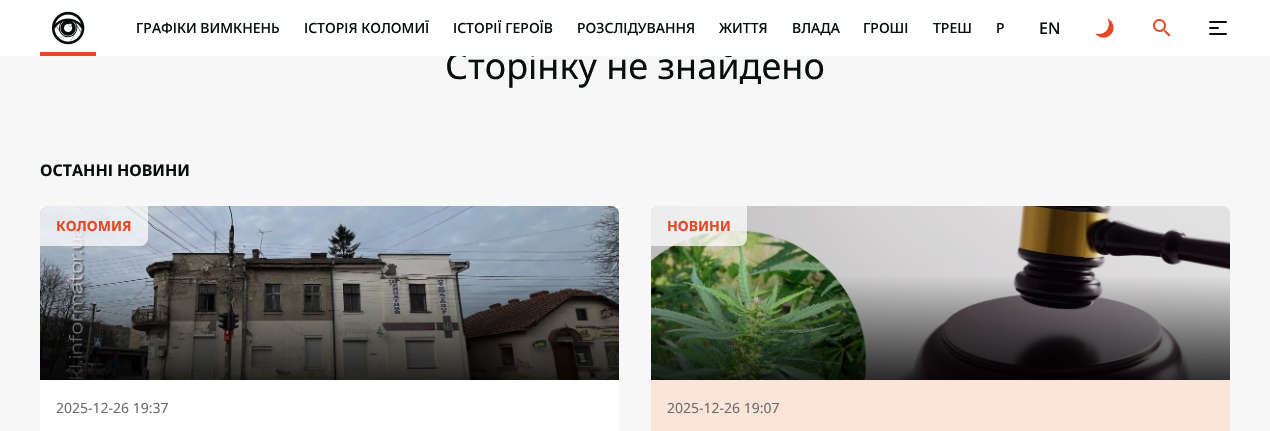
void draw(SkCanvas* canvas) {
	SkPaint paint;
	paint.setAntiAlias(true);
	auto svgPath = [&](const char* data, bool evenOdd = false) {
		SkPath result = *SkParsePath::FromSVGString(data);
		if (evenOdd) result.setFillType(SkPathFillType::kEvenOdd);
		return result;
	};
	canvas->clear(0xfff7f7f7);
	SkFont f1(fontMgr->matchFamilyStyle("Noto Sans", SkFontStyle::Normal()), 36);
	f1.setSubpixel(true);
	paint.setColor(0xff080e0d);
	canvas->drawString("Сторінку не знайдено", 445, 79, f1, paint);
	paint.setColor(0xffffffff);
	canvas->drawRect(SkRect::MakeXYWH(0, 0, 1270, 56), paint);
	canvas->drawImageRect(SkImages::DeferredFromEncodedData(SkData::MakeFromFileName("img1.png")), SkRect::MakeXYWH(51, 11, 34, 34), SkSamplingOptions());
	paint.setColor(0xffe54824);
	canvas->drawRect(SkRect::MakeXYWH(40, 52, 56, 4), paint);
	SkFont f2(fontMgr->matchFamilyStyle("Noto Sans", SkFontStyle(500, SkFontStyle::kNormal_Width, SkFontStyle::kUpright_Slant)), 14);
	f2.setSubpixel(true);
	paint.setColor(0xff080e0d);
	canvas->drawString("ГРАФІКИ ВИМКНЕНЬ", 136, 33, f2, paint);
	canvas->drawString("ІСТОРІЯ КОЛОМИЇ", 304, 33, f2, paint);
	canvas->drawString("ІСТОРІЇ ГЕРОЇВ", 453, 33, f2, paint);
	canvas->drawString("РОЗСЛІДУВАННЯ", 577, 33, f2, paint);
	canvas->drawString("ЖИТТЯ", 719, 33, f2, paint);
	canvas->drawString("ВЛАДА", 792, 33, f2, paint);
	canvas->drawString("ГРОШІ", 863, 33, f2, paint);
	canvas->drawString("ТРЕШ", 933, 33, f2, paint);
	canvas->drawString("Р", 996, 33, f2, paint);
	SkFont f3(fontMgr->matchFamilyStyle("Noto Sans", SkFontStyle(500, SkFontStyle::kNormal_Width, SkFontStyle::kUpright_Slant)), 16);
	f3.setSubpixel(true);
	canvas->drawString("EN", 1039, 34, f3, paint);
	canvas->drawImageRect(SkImages::DeferredFromEncodedData(SkData::MakeFromFileName("img2.png")), SkRect::MakeXYWH(1095, 18, 19, 20), SkSamplingOptions());
	canvas->drawImageRect(SkImages::DeferredFromEncodedData(SkData::MakeFromFileName("img3.png")), SkRect::MakeXYWH(1153, 19, 18, 18), SkSamplingOptions());
	canvas->drawRoundRect(SkRect::MakeXYWH(1209, 21, 18, 2), 1, 1, paint);
	canvas->drawRoundRect(SkRect::MakeXYWH(1209, 27, 10, 2), 1, 1, paint);
	canvas->drawRoundRect(SkRect::MakeXYWH(1209, 33, 18, 2), 1, 1, paint);
	SkFont f4(fontMgr->matchFamilyStyle("Noto Sans", SkFontStyle::Bold()), 16);
	f4.setSubpixel(true);
	canvas->drawString("ОСТАННІ НОВИНИ", 40, 176, f4, paint);
	paint.setColor(0xffffffff);
	canvas->drawRect(SkRect::MakeXYWH(40, 206, 579, 225), paint);
	canvas->drawImageRect(SkImages::DeferredFromEncodedData(SkData::MakeFromFileName("img4.png")), SkRect::MakeXYWH(40, 206, 579, 174), SkSamplingOptions());
	{
		const SkColor colors[] = {0xcc000000, 0x1a000000};
		const float stops[] = {0, 0.6};
		const SkPoint ends[] = {{330, 380}, {330, 206}};
		paint.setShader(SkGradientShader::MakeLinear(ends, colors, stops, 2, SkTileMode::kClamp));
		paint.setAlpha(255);
	}
	canvas->drawPath(svgPath("M48 206H611C615.5 206 619 209.5 619 214V380H40V214C40 209.5 43.5 206 48 206Z"), paint);
	paint.setShader(nullptr);
	paint.setColor(0xb8ffffff);
	canvas->drawPath(svgPath("M48 206H148V238C148 242.5 144.5 246 140 246H40V214C40 209.5 43.5 206 48 206Z"), paint);
	SkFont f5(fontMgr->matchFamilyStyle("Noto Sans", SkFontStyle::Bold()), 14);
	f5.setSubpixel(true);
	paint.setColor(0xffe54824);
	canvas->drawString("КОЛОМИЯ", 56, 231, f5, paint);
	SkFont f6(fontMgr->matchFamilyStyle("Noto Sans", SkFontStyle::Normal()), 14);
	f6.setSubpixel(true);
	paint.setColor(0xff6e6d6d);
	canvas->drawString("2025-12-26 19:37", 56, 413, f6, paint);
	paint.setColor(0xfffbe4d8);
	canvas->drawRoundRect(SkRect::MakeXYWH(651, 206, 579, 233), 8, 8, paint);
	canvas->drawImageRect(SkImages::DeferredFromEncodedData(SkData::MakeFromFileName("img5.png")), SkRect::MakeXYWH(651, 206, 579, 174), SkSamplingOptions());
	{
		const SkColor colors[] = {0xcc000000, 0x1a000000};
		const float stops[] = {0, 0.6};
		const SkPoint ends[] = {{941, 380}, {941, 206}};
		paint.setShader(SkGradientShader::MakeLinear(ends, colors, stops, 2, SkTileMode::kClamp));
		paint.setAlpha(255);
	}
	canvas->drawPath(svgPath("M659 206H1222C1226.5 206 1230 209.5 1230 214V380H651V214C651 209.5 654.5 206 659 206Z"), paint);
	paint.setShader(nullptr);
	paint.setColor(0xb8ffffff);
	canvas->drawPath(svgPath("M659 206H747V238C747 242.5 743.5 246 739 246H651V214C651 209.5 654.5 206 659 206Z"), paint);
	paint.setColor(0xffe54824);
	canvas->drawString("НОВИНИ", 667, 231, f5, paint);
	paint.setColor(0xff6e6d6d);
	canvas->drawString("2025-12-26 19:07", 667, 413, f6, paint);
}
